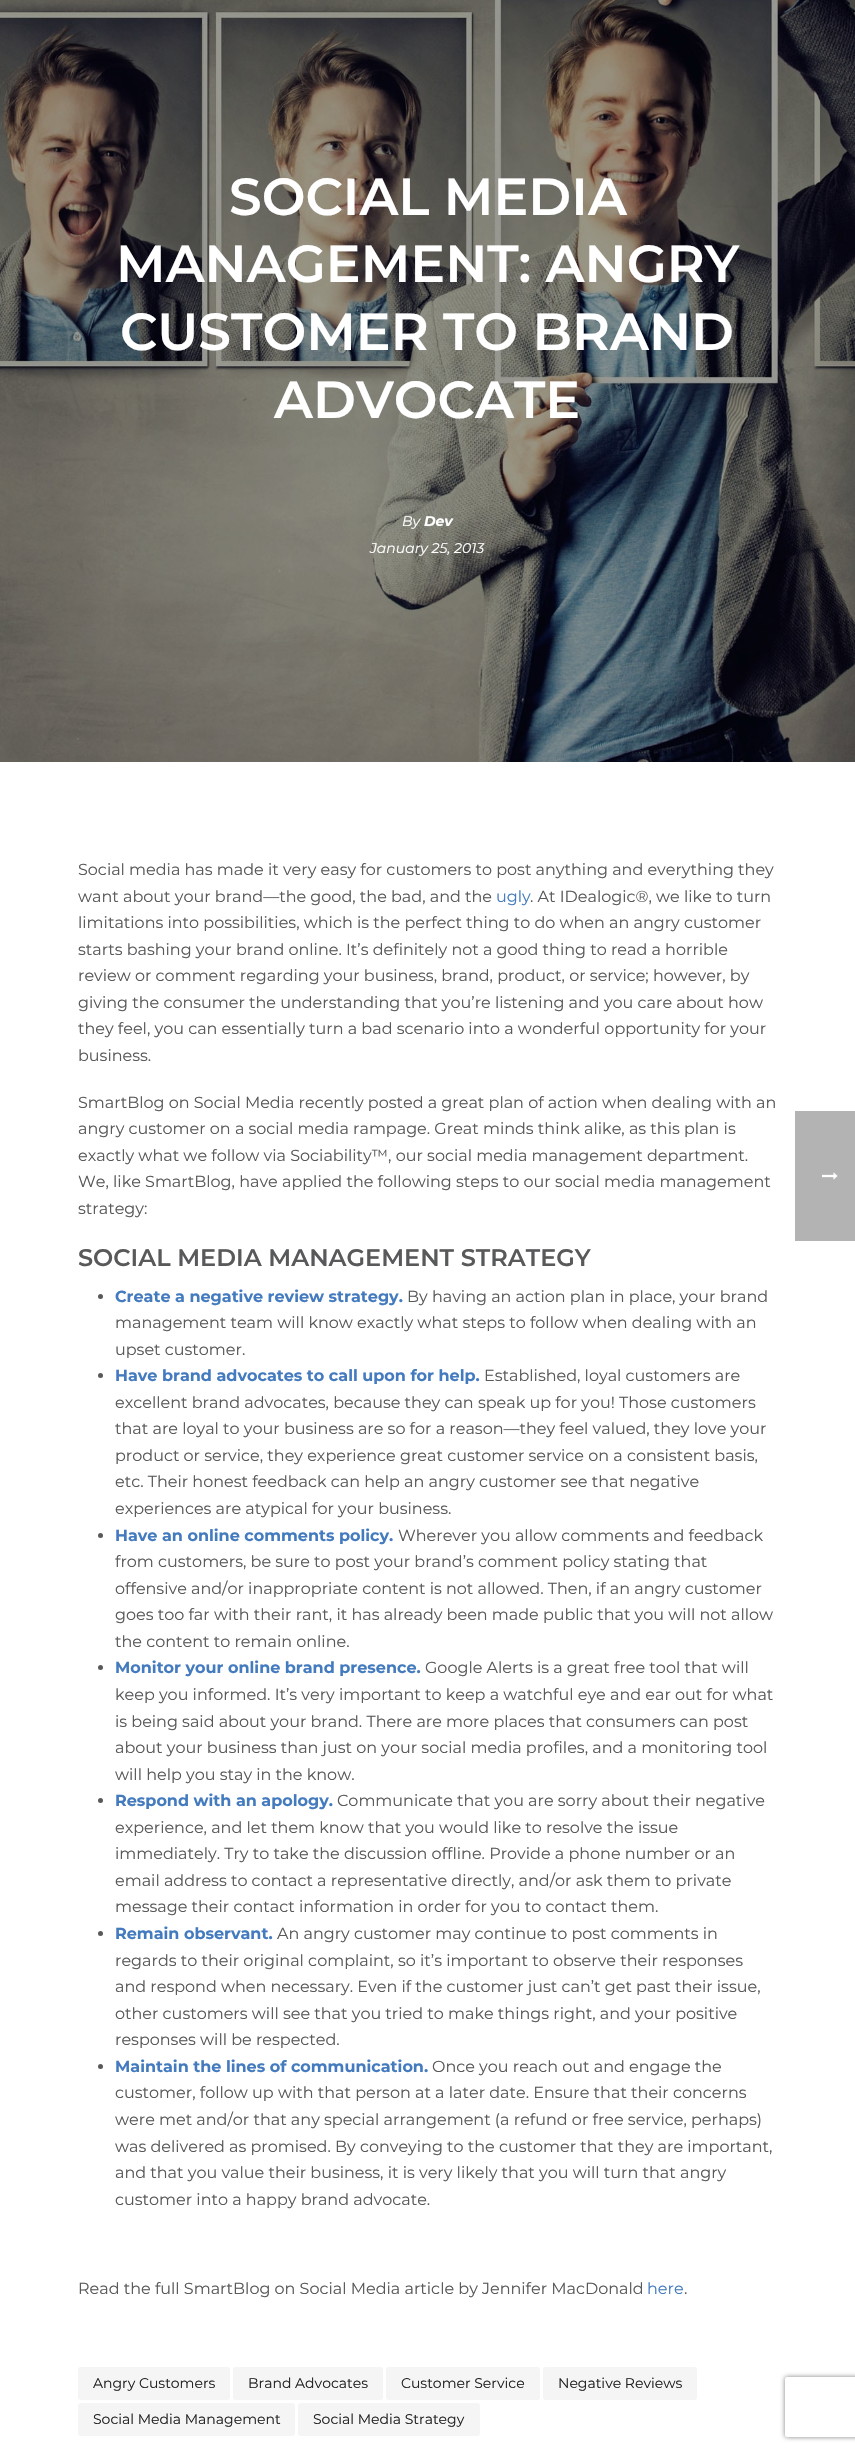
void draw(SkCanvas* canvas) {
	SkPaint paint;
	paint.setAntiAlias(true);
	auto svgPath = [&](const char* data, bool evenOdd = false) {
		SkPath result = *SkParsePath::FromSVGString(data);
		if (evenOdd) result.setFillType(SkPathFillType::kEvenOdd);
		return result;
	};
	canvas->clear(0xffffffff);
	canvas->drawImageRect(SkImages::DeferredFromEncodedData(SkData::MakeFromFileName("img1.png")), SkRect::MakeXYWH(0, 0, 855, 762), SkSamplingOptions());
	SkFont f1(fontMgr->matchFamilyStyle("Montserrat", SkFontStyle(600, SkFontStyle::kNormal_Width, SkFontStyle::kUpright_Slant)), 52);
	f1.setSubpixel(true);
	paint.setColor(0xffffffff);
	canvas->drawString("SOCIAL MEDIA", 229, 215, f1, paint);
	canvas->drawString("MANAGEMENT: ANGRY", 116, 282, f1, paint);
	canvas->drawString("CUSTOMER TO BRAND", 120, 350, f1, paint);
	canvas->drawString("ADVOCATE", 274, 418, f1, paint);
	SkFont f2(fontMgr->matchFamilyStyle("Montserrat", SkFontStyle::Italic()), 14);
	f2.setSubpixel(true);
	canvas->drawString("By", 402, 526, f2, paint);
	SkFont f3(fontMgr->matchFamilyStyle("Montserrat", SkFontStyle::BoldItalic()), 14);
	f3.setSubpixel(true);
	canvas->drawString("Dev", 424, 526, f3, paint);
	canvas->drawString("January 25, 2013", 370, 553, f2, paint);
	SkFont f4(fontMgr->matchFamilyStyle("Montserrat", SkFontStyle::Normal()), 16);
	f4.setSubpixel(true);
	paint.setColor(0xff58595b);
	canvas->drawString("Social media has made it very easy for customers to post anything and everything they", 78, 875, f4, paint);
	canvas->drawString("want about your brand—the good, the bad, and the", 78, 902, f4, paint);
	paint.setColor(0xff447bbf);
	canvas->drawString("ugly", 496, 902, f4, paint);
	paint.setColor(0xff58595b);
	canvas->drawString(". At IDealogic®, we like to turn", 530, 902, f4, paint);
	canvas->drawString("limitations into possibilities, which is the perfect thing to do when an angry customer", 78, 928, f4, paint);
	canvas->drawString("starts bashing your brand online. It’s definitely not a good thing to read a horrible", 78, 955, f4, paint);
	canvas->drawString("review or comment regarding your business, brand, product, or service; however, by", 78, 981, f4, paint);
	canvas->drawString("giving the consumer the understanding that you’re listening and you care about how", 78, 1008, f4, paint);
	canvas->drawString("they feel, you can essentially turn a bad scenario into a wonderful opportunity for your", 78, 1034, f4, paint);
	canvas->drawString("business.", 78, 1061, f4, paint);
	canvas->drawString("SmartBlog on Social Media recently posted a great plan of action when dealing with an", 78, 1108, f4, paint);
	canvas->drawString("angry customer on a social media rampage. Great minds think alike, as this plan is", 78, 1134, f4, paint);
	canvas->drawString("exactly what we follow via Sociability™, our social media management department.", 78, 1161, f4, paint);
	canvas->drawString("We, like SmartBlog, have applied the following steps to our social media management", 78, 1187, f4, paint);
	canvas->drawString("strategy:", 78, 1214, f4, paint);
	SkFont f5(fontMgr->matchFamilyStyle("Montserrat", SkFontStyle(600, SkFontStyle::kNormal_Width, SkFontStyle::kUpright_Slant)), 24);
	f5.setSubpixel(true);
	canvas->drawString("SOCIAL MEDIA MANAGEMENT STRATEGY", 78, 1266, f5, paint);
	canvas->drawCircle(100.5, 1296.5, 2.5, paint);
	SkFont f6(fontMgr->matchFamilyStyle("Montserrat", SkFontStyle::Bold()), 16);
	f6.setSubpixel(true);
	paint.setColor(0xff447bbf);
	canvas->drawString("Create a negative review strategy.", 115, 1302, f6, paint);
	paint.setColor(0xff58595b);
	canvas->drawString("By having an action plan in place, your brand", 407, 1302, f4, paint);
	canvas->drawString("management team will know exactly what steps to follow when dealing with an", 115, 1328, f4, paint);
	canvas->drawString("upset customer.", 115, 1355, f4, paint);
	canvas->drawCircle(100.5, 1375.5, 2.5, paint);
	paint.setColor(0xff447bbf);
	canvas->drawString("Have brand advocates to call upon for help.", 115, 1381, f6, paint);
	paint.setColor(0xff58595b);
	canvas->drawString("Established, loyal customers are", 484, 1381, f4, paint);
	canvas->drawString("excellent brand advocates, because they can speak up for you! Those customers", 115, 1408, f4, paint);
	canvas->drawString("that are loyal to your business are so for a reason—they feel valued, they love your", 115, 1434, f4, paint);
	canvas->drawString("product or service, they experience great customer service on a consistent basis,", 115, 1461, f4, paint);
	canvas->drawString("etc. Their honest feedback can help an angry customer see that negative", 115, 1487, f4, paint);
	canvas->drawString("experiences are atypical for your business.", 115, 1514, f4, paint);
	canvas->drawCircle(100.5, 1535.5, 2.5, paint);
	paint.setColor(0xff447bbf);
	canvas->drawString("Have an online comments policy.", 115, 1541, f6, paint);
	paint.setColor(0xff58595b);
	canvas->drawString("Wherever you allow comments and feedback", 398, 1541, f4, paint);
	canvas->drawString("from customers, be sure to post your brand’s comment policy stating that", 115, 1567, f4, paint);
	canvas->drawString("offensive and/or inappropriate content is not allowed. Then, if an angry customer", 115, 1594, f4, paint);
	canvas->drawString("goes too far with their rant, it has already been made public that you will not allow", 115, 1620, f4, paint);
	canvas->drawString("the content to remain online.", 115, 1647, f4, paint);
	canvas->drawCircle(100.5, 1667.5, 2.5, paint);
	paint.setColor(0xff447bbf);
	canvas->drawString("Monitor your online brand presence.", 115, 1673, f6, paint);
	paint.setColor(0xff58595b);
	canvas->drawString("Google Alerts is a great free tool that will", 425, 1673, f4, paint);
	canvas->drawString("keep you informed. It’s very important to keep a watchful eye and ear out for what", 115, 1700, f4, paint);
	canvas->drawString("is being said about your brand. There are more places that consumers can post", 115, 1727, f4, paint);
	canvas->drawString("about your business than just on your social media profiles, and a monitoring tool", 115, 1753, f4, paint);
	canvas->drawString("will help you stay in the know.", 115, 1780, f4, paint);
	canvas->drawCircle(100.5, 1800.5, 2.5, paint);
	paint.setColor(0xff447bbf);
	canvas->drawString("Respond with an apology.", 115, 1806, f6, paint);
	paint.setColor(0xff58595b);
	canvas->drawString("Communicate that you are sorry about their negative", 337, 1806, f4, paint);
	canvas->drawString("experience, and let them know that you would like to resolve the issue", 115, 1833, f4, paint);
	canvas->drawString("immediately. Try to take the discussion offline. Provide a phone number or an", 115, 1859, f4, paint);
	canvas->drawString("email address to contact a representative directly, and/or ask them to private", 115, 1886, f4, paint);
	canvas->drawString("message their contact information in order for you to contact them.", 115, 1912, f4, paint);
	canvas->drawCircle(100.5, 1933.5, 2.5, paint);
	paint.setColor(0xff447bbf);
	canvas->drawString("Remain observant.", 115, 1939, f6, paint);
	paint.setColor(0xff58595b);
	canvas->drawString("An angry customer may continue to post comments in", 277, 1939, f4, paint);
	canvas->drawString("regards to their original complaint, so it’s important to observe their responses", 115, 1966, f4, paint);
	canvas->drawString("and respond when necessary. Even if the customer just can’t get past their issue,", 115, 1992, f4, paint);
	canvas->drawString("other customers will see that you tried to make things right, and your positive", 115, 2019, f4, paint);
	canvas->drawString("responses will be respected.", 115, 2045, f4, paint);
	canvas->drawCircle(100.5, 2066.5, 2.5, paint);
	paint.setColor(0xff447bbf);
	canvas->drawString("Maintain the lines of communication.", 115, 2072, f6, paint);
	paint.setColor(0xff58595b);
	canvas->drawString("Once you reach out and engage the", 432, 2072, f4, paint);
	canvas->drawString("customer, follow up with that person at a later date. Ensure that their concerns", 115, 2098, f4, paint);
	canvas->drawString("were met and/or that any special arrangement (a refund or free service, perhaps)", 115, 2125, f4, paint);
	canvas->drawString("was delivered as promised. By conveying to the customer that they are important,", 115, 2152, f4, paint);
	canvas->drawString("and that you value their business, it is very likely that you will turn that angry", 115, 2178, f4, paint);
	canvas->drawString("customer into a happy brand advocate.", 115, 2205, f4, paint);
	canvas->drawString("Read the full SmartBlog on Social Media article by Jennifer MacDonald", 78, 2294, f4, paint);
	paint.setColor(0xff447bbf);
	canvas->drawString("here", 647, 2294, f4, paint);
	paint.setColor(0xff58595b);
	canvas->drawString(".", 684, 2294, f4, paint);
	paint.setColor(0xfff5f5f5);
	canvas->drawRoundRect(SkRect::MakeXYWH(78, 2367, 152, 33), 3, 3, paint);
	SkFont f7(fontMgr->matchFamilyStyle("Montserrat", SkFontStyle::Normal()), 14);
	f7.setSubpixel(true);
	paint.setColor(0xff222222);
	canvas->drawString("Angry Customers", 93, 2388, f7, paint);
	paint.setColor(0xfff5f5f5);
	canvas->drawRoundRect(SkRect::MakeXYWH(233, 2367, 150, 33), 3, 3, paint);
	paint.setColor(0xff222222);
	canvas->drawString("Brand Advocates", 248, 2388, f7, paint);
	paint.setColor(0xfff5f5f5);
	canvas->drawRoundRect(SkRect::MakeXYWH(386, 2367, 154, 33), 3, 3, paint);
	paint.setColor(0xff222222);
	canvas->drawString("Customer Service", 401, 2388, f7, paint);
	paint.setColor(0xfff5f5f5);
	canvas->drawRoundRect(SkRect::MakeXYWH(543, 2367, 154, 33), 3, 3, paint);
	paint.setColor(0xff222222);
	canvas->drawString("Negative Reviews", 558, 2388, f7, paint);
	paint.setColor(0xfff5f5f5);
	canvas->drawRoundRect(SkRect::MakeXYWH(78, 2403, 217, 33), 3, 3, paint);
	paint.setColor(0xff222222);
	canvas->drawString("Social Media Management", 93, 2424, f7, paint);
	paint.setColor(0xfff5f5f5);
	canvas->drawRoundRect(SkRect::MakeXYWH(298, 2403, 182, 33), 3, 3, paint);
	paint.setColor(0xff222222);
	canvas->drawString("Social Media Strategy", 313, 2424, f7, paint);
	paint.setColor(0xffb3b3b3);
	canvas->drawRect(SkRect::MakeXYWH(795, 1111, 60, 130), paint);
	canvas->drawImageRect(SkImages::DeferredFromEncodedData(SkData::MakeFromFileName("img2.png")), SkRect::MakeXYWH(822, 1172, 16, 8), SkSamplingOptions());
	canvas->save();
	canvas->clipPath(svgPath("M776 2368H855V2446H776ZM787 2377H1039C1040 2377 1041 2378 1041 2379V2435C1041 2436 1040 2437 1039 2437H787C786 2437 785 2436 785 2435V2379C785 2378 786 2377 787 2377Z", true), true);
	paint.setColor(0xff808080);
	paint.setMaskFilter(SkMaskFilter::MakeBlur(kNormal_SkBlurStyle, 2.5));
	canvas->drawRoundRect(SkRect::MakeXYWH(785, 2377, 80, 60), 2, 2, paint);
	paint.setMaskFilter(nullptr);
	canvas->restore();
}
